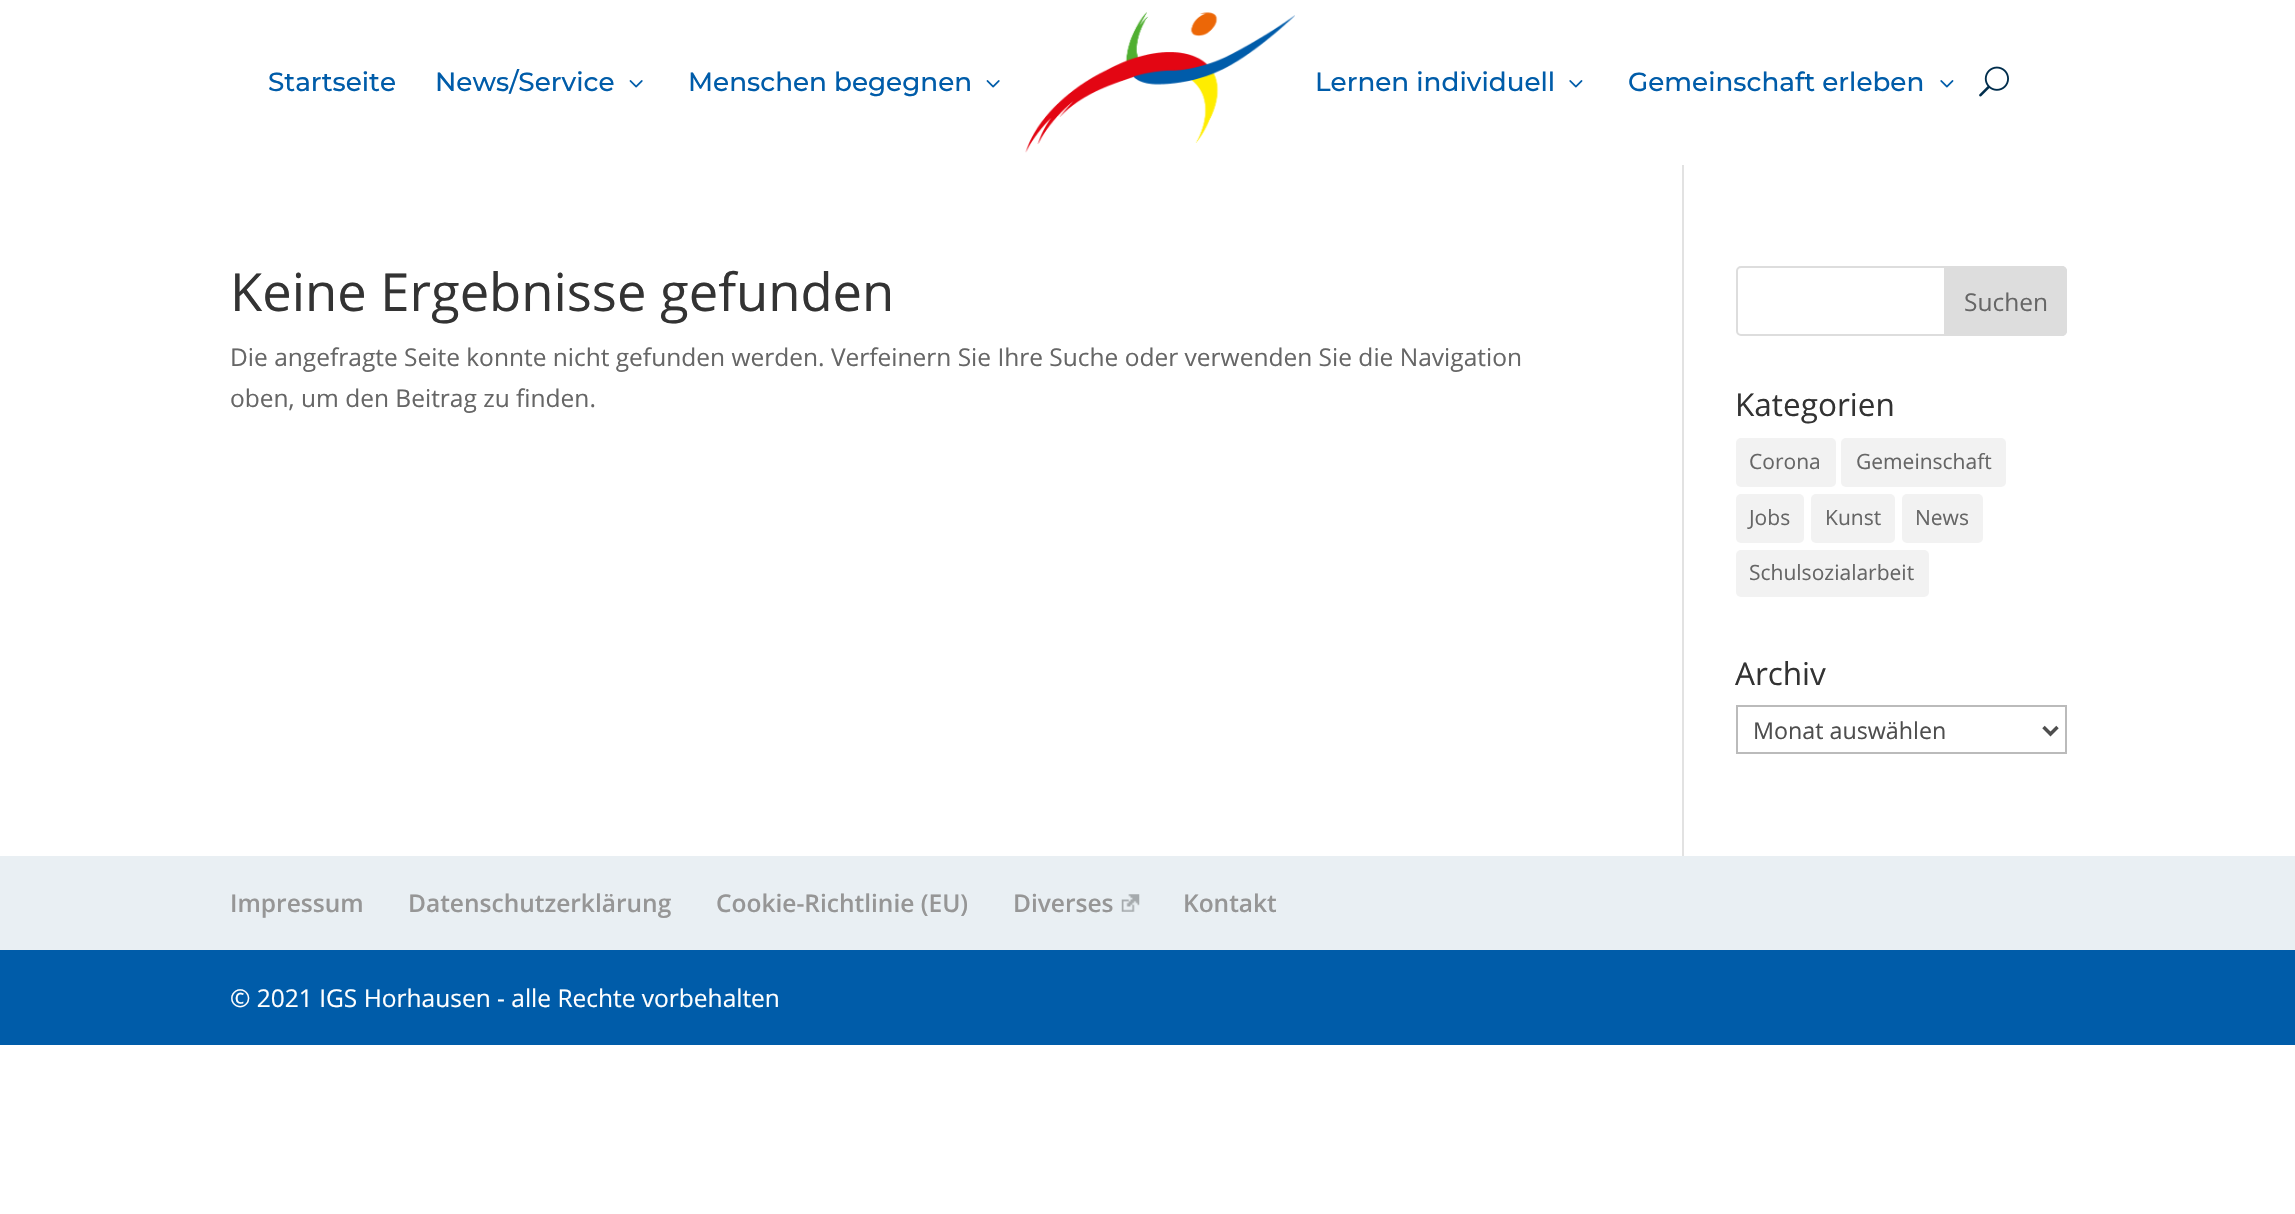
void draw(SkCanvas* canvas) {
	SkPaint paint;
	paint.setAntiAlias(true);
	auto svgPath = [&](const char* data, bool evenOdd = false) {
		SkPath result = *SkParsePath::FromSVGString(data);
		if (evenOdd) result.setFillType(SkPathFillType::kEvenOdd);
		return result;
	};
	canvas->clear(0xffffffff);
	SkFont f1(fontMgr->matchFamilyStyle("Montserrat", SkFontStyle(500, SkFontStyle::kNormal_Width, SkFontStyle::kUpright_Slant)), 26.25);
	f1.setSubpixel(true);
	paint.setColor(0xff005ca9);
	canvas->drawString("Startseite", 268, 91, f1, paint);
	canvas->drawString("News/Service", 435, 91, f1, paint);
	canvas->drawImageRect(SkImages::DeferredFromEncodedData(SkData::MakeFromFileName("img1.png")), SkRect::MakeXYWH(629, 80, 14, 8), SkSamplingOptions());
	canvas->drawString("Menschen begegnen", 688, 91, f1, paint);
	canvas->drawImageRect(SkImages::DeferredFromEncodedData(SkData::MakeFromFileName("img1.png")), SkRect::MakeXYWH(986, 80, 14, 8), SkSamplingOptions());
	canvas->drawImageRect(SkImages::DeferredFromEncodedData(SkData::MakeFromFileName("img2.png")), SkRect::MakeXYWH(1025, 12, 270, 141), SkSamplingOptions());
	canvas->drawString("Lernen individuell", 1315, 91, f1, paint);
	canvas->drawImageRect(SkImages::DeferredFromEncodedData(SkData::MakeFromFileName("img3.png")), SkRect::MakeXYWH(1569, 80, 14, 8), SkSamplingOptions());
	canvas->drawString("Gemeinschaft erleben", 1628, 91, f1, paint);
	canvas->drawImageRect(SkImages::DeferredFromEncodedData(SkData::MakeFromFileName("img3.png")), SkRect::MakeXYWH(1940, 80, 14, 8), SkSamplingOptions());
	canvas->drawImageRect(SkImages::DeferredFromEncodedData(SkData::MakeFromFileName("img4.png")), SkRect::MakeXYWH(1979, 66, 30, 31), SkSamplingOptions());
	paint.setColor(0xffe2e2e2);
	canvas->drawRect(SkRect::MakeXYWH(1682, 165, 2, 691), paint);
	SkFont f2(fontMgr->matchFamilyStyle("Open Sans", SkFontStyle::Normal()), 52.5);
	f2.setSubpixel(true);
	paint.setColor(0xff333333);
	canvas->drawString("Keine Ergebnisse gefunden", 230, 311, f2, paint);
	SkFont f3(fontMgr->matchFamilyStyle("Open Sans", SkFontStyle::Normal()), 24.5);
	f3.setSubpixel(true);
	paint.setColor(0xff666666);
	canvas->drawString("Die angefragte Seite konnte nicht gefunden werden. Verfeinern Sie Ihre Suche oder verwenden Sie die Navigation", 230, 366, f3, paint);
	canvas->drawString("oben, um den Beitrag zu finden.", 230, 407, f3, paint);
	paint.setStroke(true);
	paint.setStrokeWidth(2);
	paint.setColor(0xffdddddd);
	canvas->drawRoundRect(SkRect::MakeXYWH(1737, 267, 329, 68), 4, 4, paint);
	paint.setStroke(false);
	canvas->drawPath(svgPath("M1945 267H2062C2064 267 2066 269 2066 271V331C2066 333 2064 335 2062 335H1945Z"), paint);
	paint.setStroke(true);
	canvas->drawPath(svgPath("M1945 267H2062C2064 267 2066 269 2066 271V331C2066 333 2064 335 2062 335H1945Z"), paint);
	paint.setStroke(false);
	paint.setColor(0xff666666);
	canvas->drawString("Suchen", 1964, 311, f3, paint);
	SkFont f4(fontMgr->matchFamilyStyle("Open Sans", SkFontStyle::Normal()), 31.5);
	f4.setSubpixel(true);
	paint.setColor(0xff333333);
	canvas->drawString("Kategorien", 1735, 416, f4, paint);
	paint.setColor(0xfff2f2f2);
	canvas->drawRoundRect(SkRect::MakeXYWH(1736, 438, 100, 49), 5, 5, paint);
	SkFont f5(fontMgr->matchFamilyStyle("Open Sans", SkFontStyle::Normal()), 21);
	f5.setSubpixel(true);
	paint.setColor(0xff666666);
	canvas->drawString("Corona", 1749, 469, f5, paint);
	paint.setColor(0xfff2f2f2);
	canvas->drawRoundRect(SkRect::MakeXYWH(1841, 438, 165, 49), 5, 5, paint);
	paint.setColor(0xff666666);
	canvas->drawString("Gemeinschaft", 1856, 469, f5, paint);
	paint.setColor(0xfff2f2f2);
	canvas->drawRoundRect(SkRect::MakeXYWH(1736, 494, 68, 49), 5, 5, paint);
	paint.setColor(0xff666666);
	canvas->drawString("Jobs", 1749, 525, f5, paint);
	paint.setColor(0xfff2f2f2);
	canvas->drawRoundRect(SkRect::MakeXYWH(1811, 494, 84, 49), 5, 5, paint);
	paint.setColor(0xff666666);
	canvas->drawString("Kunst", 1825, 525, f5, paint);
	paint.setColor(0xfff2f2f2);
	canvas->drawRoundRect(SkRect::MakeXYWH(1902, 494, 81, 49), 5, 5, paint);
	paint.setColor(0xff666666);
	canvas->drawString("News", 1915, 525, f5, paint);
	paint.setColor(0xfff2f2f2);
	canvas->drawRoundRect(SkRect::MakeXYWH(1736, 550, 193, 47), 5, 5, paint);
	paint.setColor(0xff666666);
	canvas->drawString("Schulsozialarbeit", 1749, 580, f5, paint);
	paint.setColor(0xff333333);
	canvas->drawString("Archiv", 1735, 685, f4, paint);
	paint.setStroke(true);
	paint.setColor(0xffbbbbbb);
	canvas->drawRect(SkRect::MakeXYWH(1737, 706, 329, 47), paint);
	paint.setStrokeWidth(3.5);
	paint.setColor(0xff4e4e4e);
	canvas->drawPath(svgPath("M2043.5 727L2050.5 734L2057.5 727"), paint);
	SkFont f6(fontMgr->matchFamilyStyle("Open Sans", SkFontStyle::Normal()), 23.25);
	f6.setSubpixel(true);
	paint.setStroke(false);
	canvas->drawString("Monat auswählen", 1753, 739, f6, paint);
	paint.setColor(0xffe9eff3);
	canvas->drawRect(SkRect::MakeXYWH(0, 856, 2295, 94), paint);
	SkFont f7(fontMgr->matchFamilyStyle("Open Sans", SkFontStyle(600, SkFontStyle::kNormal_Width, SkFontStyle::kUpright_Slant)), 24.5);
	f7.setSubpixel(true);
	paint.setColor(0xff969696);
	canvas->drawString("Impressum", 230, 912, f7, paint);
	canvas->drawString("Datenschutzerklärung", 408, 912, f7, paint);
	canvas->drawString("Cookie-Richtlinie (EU)", 716, 912, f7, paint);
	canvas->drawString("Diverses", 1013, 912, f7, paint);
	canvas->drawImageRect(SkImages::DeferredFromEncodedData(SkData::MakeFromFileName("img5.png")), SkRect::MakeXYWH(1121, 894, 19, 18), SkSamplingOptions());
	canvas->drawString("Kontakt", 1183, 912, f7, paint);
	paint.setColor(0xff005ca9);
	canvas->drawRect(SkRect::MakeXYWH(0, 950, 2295, 95), paint);
	paint.setColor(0xffffffff);
	canvas->drawString("© 2021 IGS Horhausen - alle Rechte vorbehalten", 230, 1007, f3, paint);
}
